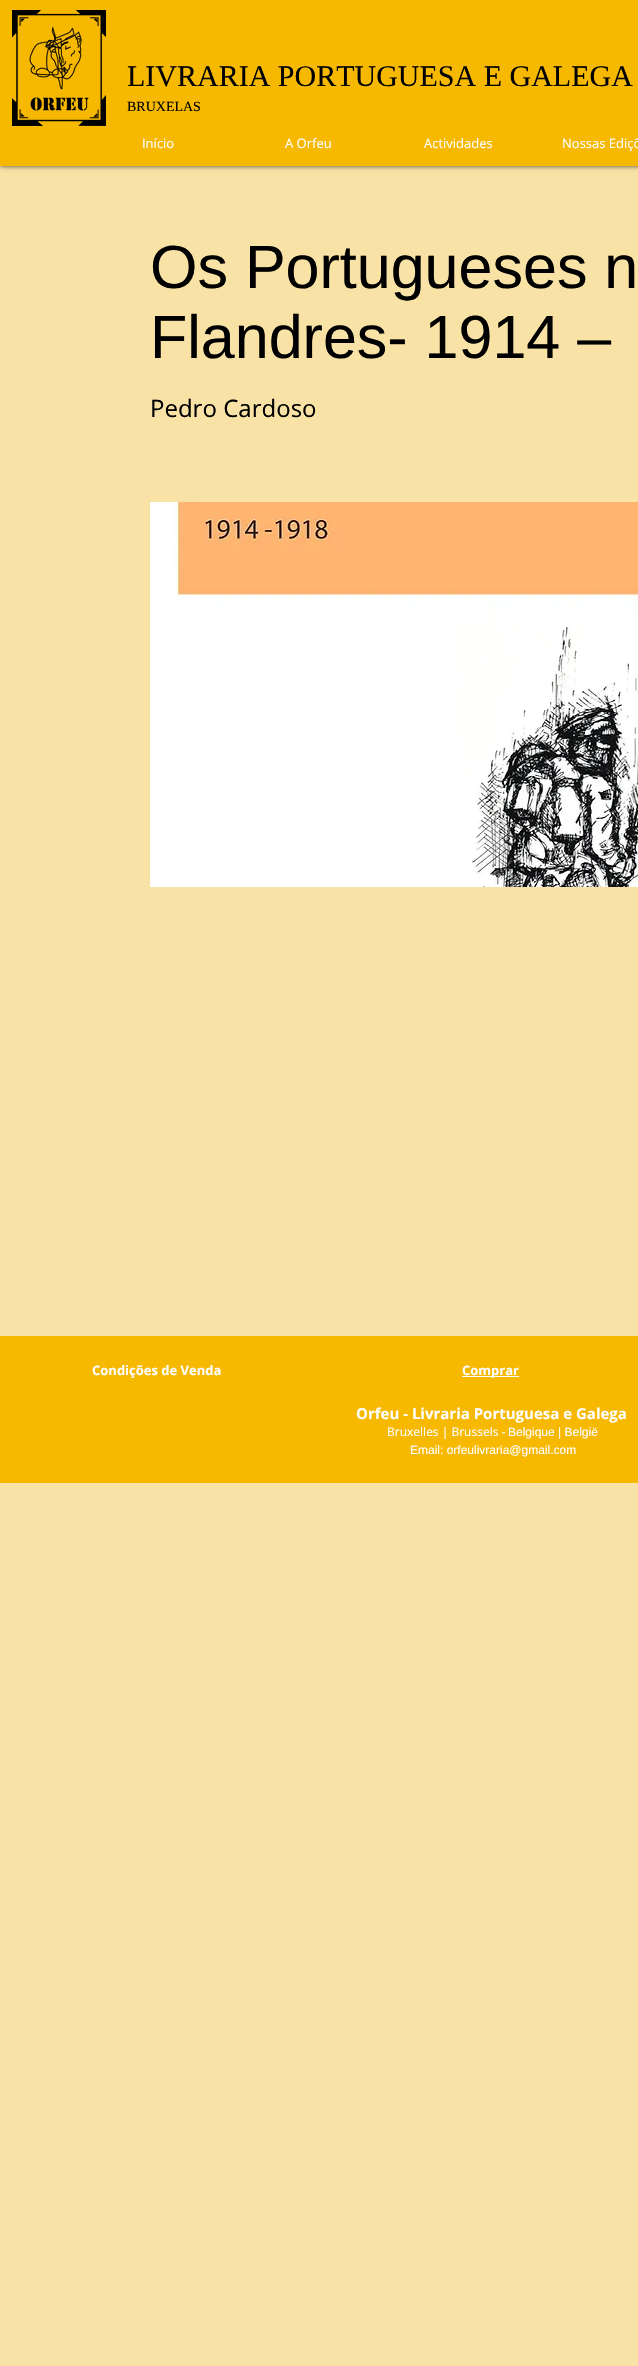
void draw(SkCanvas* canvas) {
	SkPaint paint;
	paint.setAntiAlias(true);
	canvas->clear(0xfff9e2a6);
	paint.setColor(0xb3000000);
	paint.setMaskFilter(SkMaskFilter::MakeBlur(kNormal_SkBlurStyle, 2.5));
	canvas->drawRect(SkRect::MakeXYWH(0, 0, 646, 166), paint);
	paint.setMaskFilter(nullptr);
	paint.setColor(0xfff7b800);
	canvas->drawRect(SkRect::MakeXYWH(0, 0, 638, 166), paint);
	canvas->drawImageRect(SkImages::DeferredFromEncodedData(SkData::MakeFromFileName("img1.png")), SkRect::MakeXYWH(12, 10, 94, 116), SkSamplingOptions());
	SkFont f1(fontMgr->matchFamilyStyle("Liberation Serif", SkFontStyle::Normal()), 30);
	f1.setSubpixel(true);
	paint.setColor(0xff000000);
	canvas->drawString("LIVRARIA PORTUGUESA E GALEGA", 127, 86, f1, paint);
	SkFont f2(fontMgr->matchFamilyStyle("Liberation Serif", SkFontStyle::Normal()), 14);
	f2.setSubpixel(true);
	canvas->drawString("BRUXELAS", 127, 111, f2, paint);
	SkFont f3(fontMgr->matchFamilyStyle("Open Sans", SkFontStyle::Normal()), 13);
	f3.setSubpixel(true);
	paint.setColor(0xfffefdfd);
	canvas->drawString("Início", 142, 148, f3, paint);
	canvas->drawString("A Orfeu", 285, 148, f3, paint);
	canvas->drawString("Actividades", 424, 148, f3, paint);
	canvas->drawString("Nossas Ediçõ", 562, 148, f3, paint);
	SkFont f4(fontMgr->matchFamilyStyle("Liberation Sans", SkFontStyle::Normal()), 61);
	f4.setSubpixel(true);
	paint.setColor(0xff000000);
	canvas->drawString("Os Portugueses n", 150, 288, f4, paint);
	canvas->drawString("Flandres- 1914 –", 150, 358, f4, paint);
	SkFont f5(fontMgr->matchFamilyStyle("Open Sans", SkFontStyle::Normal()), 24);
	f5.setSubpixel(true);
	canvas->drawString("Pedro Cardoso", 150, 417, f5, paint);
	canvas->drawImageRect(SkImages::DeferredFromEncodedData(SkData::MakeFromFileName("img2.png")), SkRect::MakeXYWH(150, 502, 488, 385), SkSamplingOptions());
	paint.setColor(0xfff7b800);
	canvas->drawRect(SkRect::MakeXYWH(0, 1336, 638, 147), paint);
	SkFont f6(fontMgr->matchFamilyStyle("Open Sans", SkFontStyle::Bold()), 13);
	f6.setSubpixel(true);
	paint.setColor(0xfffefdfd);
	canvas->drawString("Condições de Venda", 92, 1375, f6, paint);
	canvas->drawRect(SkRect::MakeXYWH(462, 1376, 57, 1), paint);
	canvas->drawString("Comprar", 462, 1375, f6, paint);
	SkFont f7(fontMgr->matchFamilyStyle("Open Sans", SkFontStyle::Bold()), 15);
	f7.setSubpixel(true);
	canvas->drawString("Orfeu - Livraria Portuguesa e Galega", 356, 1419, f7, paint);
	SkFont f8(fontMgr->matchFamilyStyle("Open Sans", SkFontStyle::Normal()), 12);
	f8.setSubpixel(true);
	canvas->drawString("Bruxelles | Brussels -", 387, 1436, f8, paint);
	SkFont f9(fontMgr->matchFamilyStyle("Liberation Sans", SkFontStyle::Normal()), 12);
	f9.setSubpixel(true);
	canvas->drawString("Belgique | België", 508, 1436, f9, paint);
	canvas->drawString("Email: orfeulivraria@gmail.com", 410, 1454, f9, paint);
}
